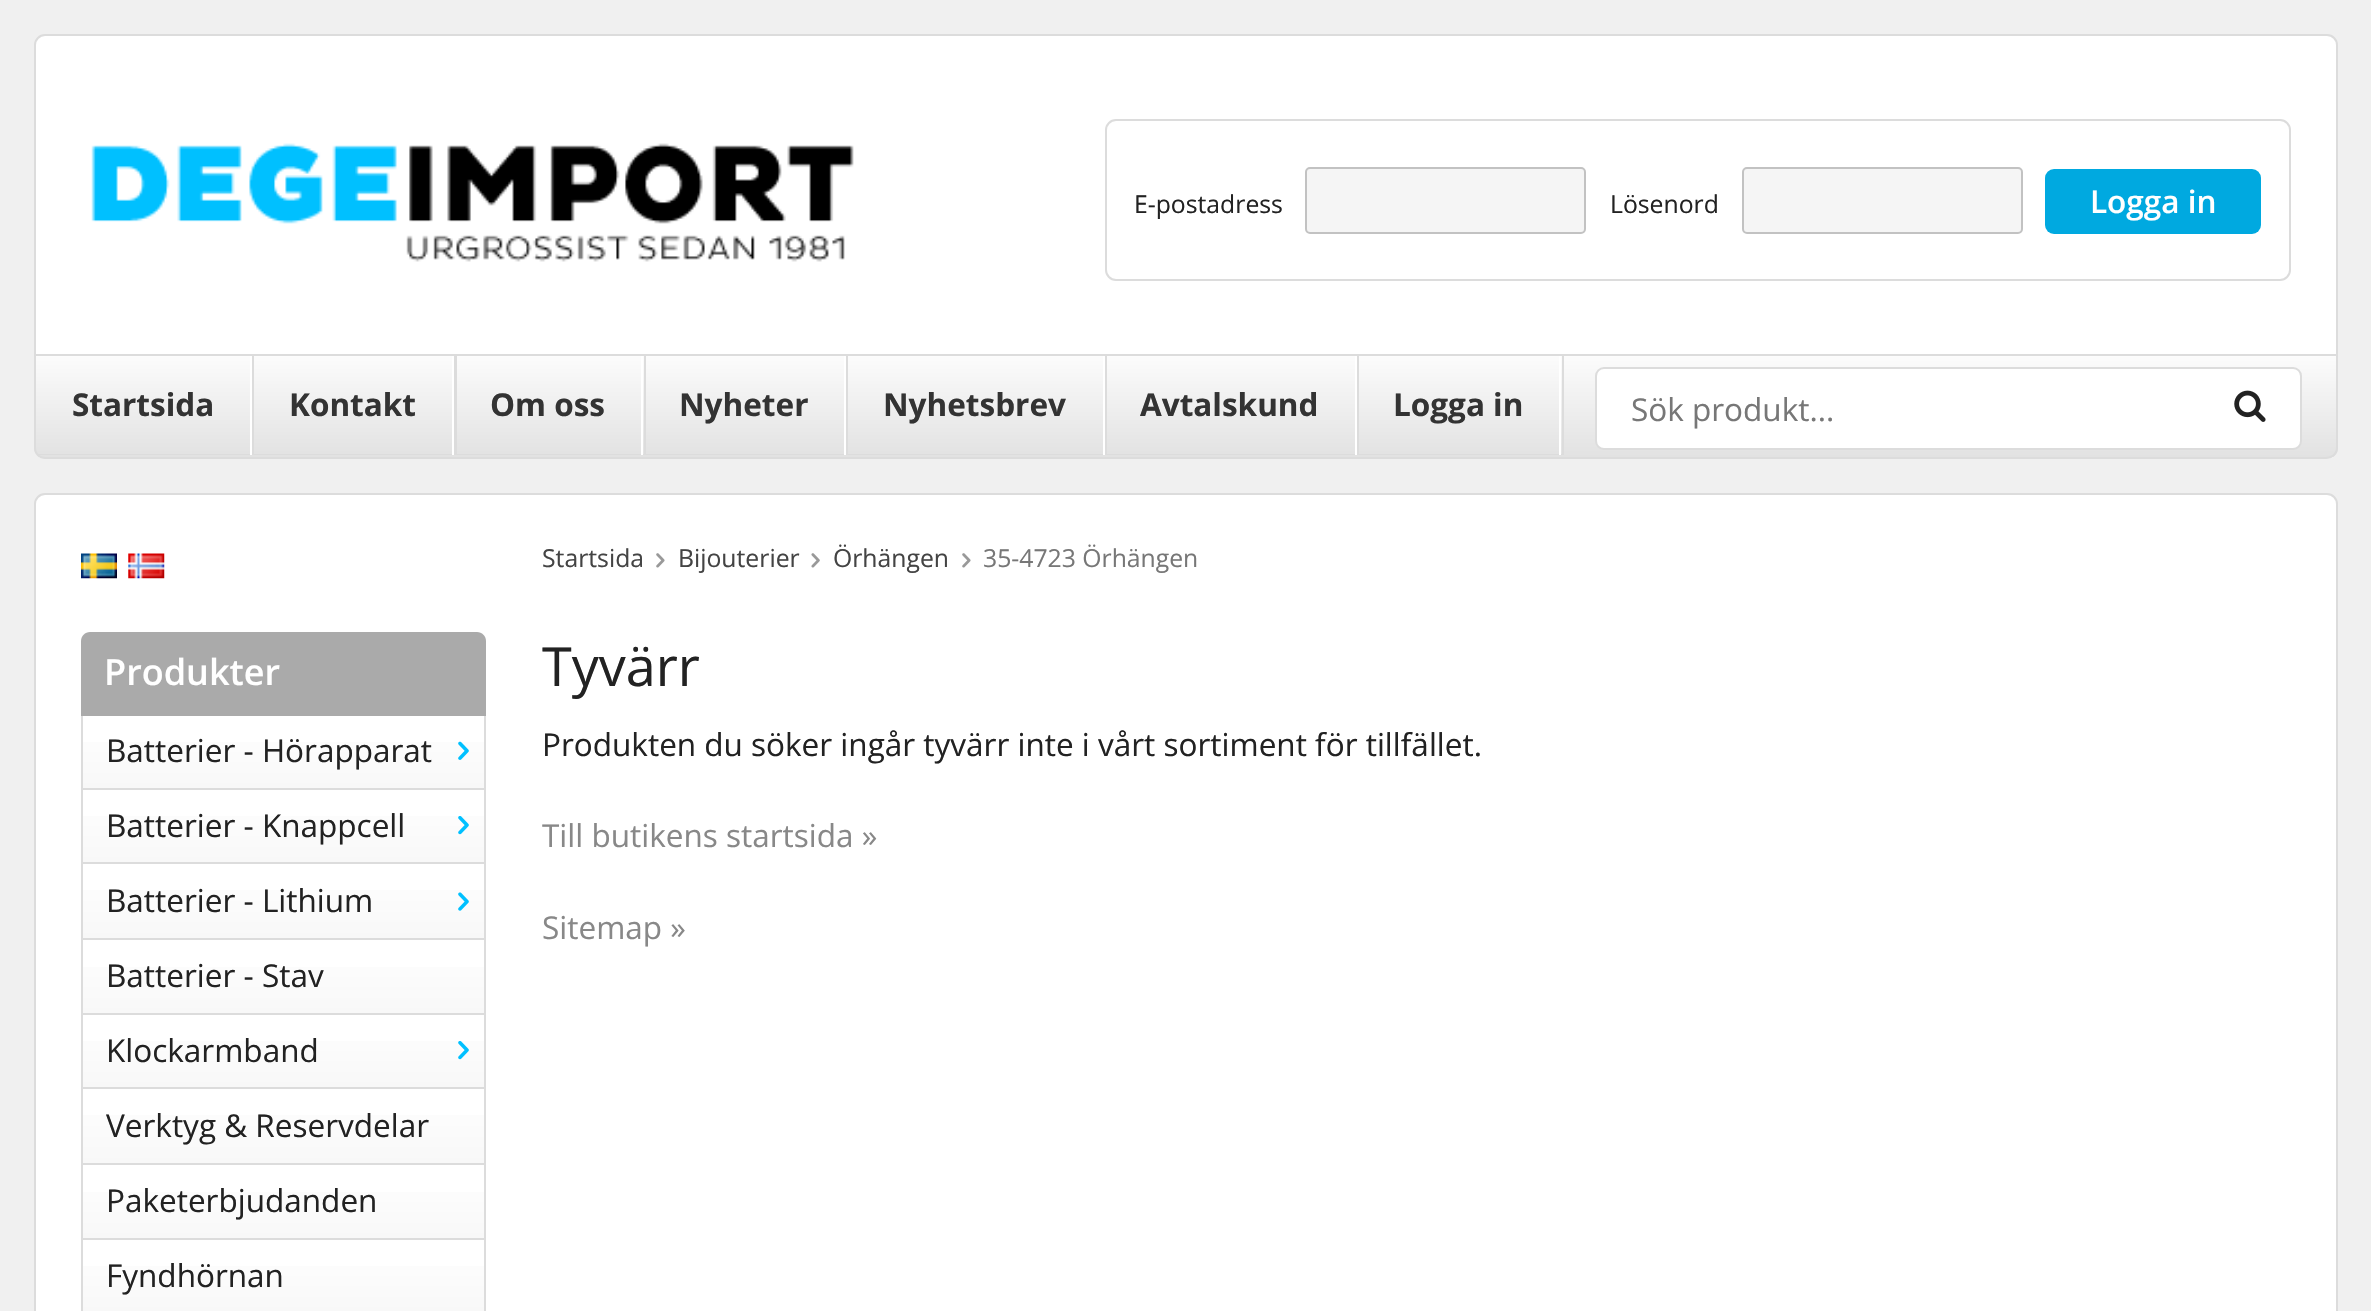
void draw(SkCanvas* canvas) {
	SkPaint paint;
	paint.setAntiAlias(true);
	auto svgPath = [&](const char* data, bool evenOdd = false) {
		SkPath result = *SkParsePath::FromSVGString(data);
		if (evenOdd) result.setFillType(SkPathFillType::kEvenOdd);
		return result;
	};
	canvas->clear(0xfff0f0f0);
	paint.setColor(0xffffffff);
	canvas->drawPath(svgPath("M45 35H2327C2332.5 35 2337 39.5 2337 45V355H35V45C35 39.5 39.5 35 45 35Z"), paint);
	paint.setStroke(true);
	paint.setStrokeWidth(2);
	paint.setColor(0xffdcdcdc);
	canvas->drawPath(svgPath("M45 35H2327C2332.5 35 2337 39.5 2337 45V355H35V45C35 39.5 39.5 35 45 35Z"), paint);
	canvas->drawImageRect(SkImages::DeferredFromEncodedData(SkData::MakeFromFileName("img1.png")), SkRect::MakeXYWH(91, 143, 763, 119), SkSamplingOptions());
	canvas->drawRoundRect(SkRect::MakeXYWH(1106, 120, 1184, 160), 10, 10, paint);
	SkFont f1(fontMgr->matchFamilyStyle("Open Sans", SkFontStyle::Normal()), 24.75);
	f1.setSubpixel(true);
	paint.setStroke(false);
	paint.setColor(0xff222222);
	canvas->drawString("E-postadress", 1134, 213, f1, paint);
	paint.setColor(0xfff5f5f5);
	canvas->drawRoundRect(SkRect::MakeXYWH(1306, 168, 279, 65), 4, 4, paint);
	paint.setStroke(true);
	paint.setColor(0xffc2c2c2);
	canvas->drawRoundRect(SkRect::MakeXYWH(1306, 168, 279, 65), 4, 4, paint);
	paint.setStroke(false);
	paint.setColor(0xff222222);
	canvas->drawString("Lösenord", 1610, 213, f1, paint);
	paint.setColor(0xfff5f5f5);
	canvas->drawRoundRect(SkRect::MakeXYWH(1743, 168, 279, 65), 4, 4, paint);
	paint.setStroke(true);
	paint.setColor(0xffc2c2c2);
	canvas->drawRoundRect(SkRect::MakeXYWH(1743, 168, 279, 65), 4, 4, paint);
	paint.setStroke(false);
	paint.setColor(0xff00a9e0);
	canvas->drawRoundRect(SkRect::MakeXYWH(2045, 169, 216, 65), 9, 9, paint);
	SkFont f2(fontMgr->matchFamilyStyle("Open Sans", SkFontStyle(600, SkFontStyle::kNormal_Width, SkFontStyle::kUpright_Slant)), 31.5);
	f2.setSubpixel(true);
	paint.setColor(0xffffffff);
	canvas->drawString("Logga in", 2090, 213, f2, paint);
	canvas->save();
	canvas->clipPath(svgPath("M34 356H2338V448C2338 454 2333 459 2327 459H45C39 459 34 454 34 448Z"), true);
	{
		const SkColor colors[] = {0xfffcfcfc, 0xffe2e2e2};
		const float stops[] = {0, 1};
		const SkPoint ends[] = {{1186, 355}, {1186, 457}};
		paint.setShader(SkGradientShader::MakeLinear(ends, colors, stops, 2, SkTileMode::kClamp));
		paint.setAlpha(255);
	}
	canvas->drawRect(SkRect::MakeXYWH(34, 356, 2304, 101), paint);
	{
		const SkColor colors[] = {0xfffcfcfc, 0xffe2e2e2};
		const float stops[] = {0, 1};
		const SkPoint ends[] = {{1186, 457}, {1186, 558}};
		paint.setShader(SkGradientShader::MakeLinear(ends, colors, stops, 2, SkTileMode::kClamp));
		paint.setAlpha(255);
	}
	canvas->drawRect(SkRect::MakeXYWH(34, 457, 2304, 2), paint);
	canvas->restore();
	paint.setShader(nullptr);
	paint.setColor(0xffdcdcdc);
	canvas->drawPath(svgPath("M34 356H2338V448C2338 454 2333 459 2326 459H45C39 459 34 454 34 448ZM36 356H2336V448C2336 453 2331 457 2326 457H45C40 457 36 453 36 448Z", true), paint);
	canvas->drawPath(svgPath("M38 454V455H254V356H252V454Z"), paint);
	paint.setColor(0xffffffff);
	canvas->drawRect(SkRect::MakeXYWH(250, 356, 2, 99), paint);
	SkFont f3(fontMgr->matchFamilyStyle("Open Sans", SkFontStyle::Bold()), 31.5);
	f3.setSubpixel(true);
	paint.setColor(0xff333333);
	canvas->drawString("Startsida", 72, 416, f3, paint);
	paint.setColor(0xffdcdcdc);
	canvas->drawPath(svgPath("M254 454V455H457V356H454V454Z"), paint);
	paint.setColor(0xffffffff);
	canvas->drawRect(SkRect::MakeXYWH(452, 356, 2, 99), paint);
	paint.setColor(0xff333333);
	canvas->drawString("Kontakt", 289, 416, f3, paint);
	paint.setColor(0xffdcdcdc);
	canvas->drawPath(svgPath("M457 454V455H646V356H644V454Z"), paint);
	paint.setColor(0xffffffff);
	canvas->drawRect(SkRect::MakeXYWH(641, 356, 2, 99), paint);
	paint.setColor(0xff333333);
	canvas->drawString("Om oss", 490, 416, f3, paint);
	paint.setColor(0xffdcdcdc);
	canvas->drawPath(svgPath("M646 454V455H848V356H846V454Z"), paint);
	paint.setColor(0xffffffff);
	canvas->drawRect(SkRect::MakeXYWH(844, 356, 2, 99), paint);
	paint.setColor(0xff333333);
	canvas->drawString("Nyheter", 679, 416, f3, paint);
	paint.setColor(0xffdcdcdc);
	canvas->drawPath(svgPath("M848 454V455H1107V356H1105V454Z"), paint);
	paint.setColor(0xffffffff);
	canvas->drawRect(SkRect::MakeXYWH(1103, 356, 2, 99), paint);
	paint.setColor(0xff333333);
	canvas->drawString("Nyhetsbrev", 883, 416, f3, paint);
	paint.setColor(0xffdcdcdc);
	canvas->drawPath(svgPath("M1107 454V455H1359V356H1357V454Z"), paint);
	paint.setColor(0xffffffff);
	canvas->drawRect(SkRect::MakeXYWH(1355, 356, 2, 99), paint);
	paint.setColor(0xff333333);
	canvas->drawString("Avtalskund", 1140, 416, f3, paint);
	paint.setColor(0xffdcdcdc);
	canvas->drawPath(svgPath("M1359 454V455H1564V356H1562V454Z"), paint);
	paint.setColor(0xffffffff);
	canvas->drawRect(SkRect::MakeXYWH(1559, 356, 2, 99), paint);
	paint.setColor(0xff333333);
	canvas->drawString("Logga in", 1393, 416, f3, paint);
	paint.setColor(0xffffffff);
	canvas->drawRoundRect(SkRect::MakeXYWH(1596, 368, 705, 81), 8, 8, paint);
	paint.setStroke(true);
	paint.setColor(0xffdcdcdc);
	canvas->drawRoundRect(SkRect::MakeXYWH(1596, 368, 705, 81), 8, 8, paint);
	SkFont f4(fontMgr->matchFamilyStyle("Open Sans", SkFontStyle::Normal()), 31.5);
	f4.setSubpixel(true);
	paint.setStroke(false);
	paint.setColor(0xff777777);
	canvas->drawString("Sök produkt...", 1631, 421, f4, paint);
	canvas->drawImageRect(SkImages::DeferredFromEncodedData(SkData::MakeFromFileName("img2.png")), SkRect::MakeXYWH(2234, 390, 32, 32), SkSamplingOptions());
	paint.setColor(0xffffffff);
	canvas->drawRoundRect(SkRect::MakeXYWH(35, 494, 2302, 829), 10, 10, paint);
	paint.setStroke(true);
	paint.setColor(0xffdcdcdc);
	canvas->drawRoundRect(SkRect::MakeXYWH(35, 494, 2302, 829), 10, 10, paint);
	canvas->drawImageRect(SkImages::DeferredFromEncodedData(SkData::MakeFromFileName("img3.png")), SkRect::MakeXYWH(81, 553, 36, 26), SkSamplingOptions());
	canvas->drawImageRect(SkImages::DeferredFromEncodedData(SkData::MakeFromFileName("img4.png")), SkRect::MakeXYWH(128, 553, 37, 26), SkSamplingOptions());
	paint.setStroke(false);
	paint.setColor(0xffaaaaaa);
	canvas->drawPath(svgPath("M90 632H477C482 632 486 636 486 641V716H81V641C81 636 85 632 90 632Z"), paint);
	SkFont f5(fontMgr->matchFamilyStyle("Open Sans", SkFontStyle(600, SkFontStyle::kNormal_Width, SkFontStyle::kUpright_Slant)), 36);
	f5.setSubpixel(true);
	paint.setColor(0xffffffff);
	canvas->drawString("Produkter", 104, 685, f5, paint);
	paint.setColor(0xffdcdcdc);
	canvas->drawRect(SkRect::MakeXYWH(484, 716, 2, 595), paint);
	canvas->drawRect(SkRect::MakeXYWH(81, 716, 2, 595), paint);
	{
		const SkColor colors[] = {0xffffffff, 0xfff8f8f8};
		const float stops[] = {0, 1};
		const SkPoint ends[] = {{284, 716}, {284, 788}};
		paint.setShader(SkGradientShader::MakeLinear(ends, colors, stops, 2, SkTileMode::kClamp));
		paint.setAlpha(255);
	}
	canvas->drawRect(SkRect::MakeXYWH(83, 742, 401, 46), paint);
	paint.setShader(nullptr);
	paint.setColor(0xffdcdcdc);
	canvas->drawRect(SkRect::MakeXYWH(83, 788, 401, 2), paint);
	paint.setColor(0xff222222);
	canvas->drawString("Batterier - Hörapparat", 106, 762, f4, paint);
	canvas->drawImageRect(SkImages::DeferredFromEncodedData(SkData::MakeFromFileName("img5.png")), SkRect::MakeXYWH(458, 741, 11, 19), SkSamplingOptions());
	{
		const SkColor colors[] = {0xffffffff, 0xfff8f8f8};
		const float stops[] = {0, 1};
		const SkPoint ends[] = {{284, 790}, {284, 862}};
		paint.setShader(SkGradientShader::MakeLinear(ends, colors, stops, 2, SkTileMode::kClamp));
		paint.setAlpha(255);
	}
	canvas->drawRect(SkRect::MakeXYWH(83, 816, 401, 46), paint);
	paint.setShader(nullptr);
	paint.setColor(0xffdcdcdc);
	canvas->drawRect(SkRect::MakeXYWH(83, 862, 401, 2), paint);
	paint.setColor(0xff222222);
	canvas->drawString("Batterier - Knappcell", 106, 837, f4, paint);
	canvas->drawImageRect(SkImages::DeferredFromEncodedData(SkData::MakeFromFileName("img6.png")), SkRect::MakeXYWH(458, 816, 11, 19), SkSamplingOptions());
	{
		const SkColor colors[] = {0xffffffff, 0xfff8f8f8};
		const float stops[] = {0, 1};
		const SkPoint ends[] = {{284, 864}, {284, 938}};
		paint.setShader(SkGradientShader::MakeLinear(ends, colors, stops, 2, SkTileMode::kClamp));
		paint.setAlpha(255);
	}
	canvas->drawRect(SkRect::MakeXYWH(83, 890, 401, 48), paint);
	paint.setShader(nullptr);
	paint.setColor(0xffdcdcdc);
	canvas->drawRect(SkRect::MakeXYWH(83, 938, 401, 2), paint);
	paint.setColor(0xff222222);
	canvas->drawString("Batterier - Lithium", 106, 912, f4, paint);
	canvas->drawImageRect(SkImages::DeferredFromEncodedData(SkData::MakeFromFileName("img7.png")), SkRect::MakeXYWH(458, 892, 11, 19), SkSamplingOptions());
	{
		const SkColor colors[] = {0xffffffff, 0xfff8f8f8};
		const float stops[] = {0, 1};
		const SkPoint ends[] = {{284, 941}, {284, 1013}};
		paint.setShader(SkGradientShader::MakeLinear(ends, colors, stops, 2, SkTileMode::kClamp));
		paint.setAlpha(255);
	}
	canvas->drawRect(SkRect::MakeXYWH(83, 967, 401, 46), paint);
	paint.setShader(nullptr);
	paint.setColor(0xffdcdcdc);
	canvas->drawRect(SkRect::MakeXYWH(83, 1013, 401, 2), paint);
	paint.setColor(0xff222222);
	canvas->drawString("Batterier - Stav", 106, 987, f4, paint);
	{
		const SkColor colors[] = {0xffffffff, 0xfff8f8f8};
		const float stops[] = {0, 1};
		const SkPoint ends[] = {{284, 1015}, {284, 1087}};
		paint.setShader(SkGradientShader::MakeLinear(ends, colors, stops, 2, SkTileMode::kClamp));
		paint.setAlpha(255);
	}
	canvas->drawRect(SkRect::MakeXYWH(83, 1041, 401, 46), paint);
	paint.setShader(nullptr);
	paint.setColor(0xffdcdcdc);
	canvas->drawRect(SkRect::MakeXYWH(83, 1087, 401, 2), paint);
	paint.setColor(0xff222222);
	canvas->drawString("Klockarmband", 106, 1062, f4, paint);
	canvas->drawImageRect(SkImages::DeferredFromEncodedData(SkData::MakeFromFileName("img6.png")), SkRect::MakeXYWH(458, 1041, 11, 19), SkSamplingOptions());
	{
		const SkColor colors[] = {0xffffffff, 0xfff8f8f8};
		const float stops[] = {0, 1};
		const SkPoint ends[] = {{284, 1089}, {284, 1163}};
		paint.setShader(SkGradientShader::MakeLinear(ends, colors, stops, 2, SkTileMode::kClamp));
		paint.setAlpha(255);
	}
	canvas->drawRect(SkRect::MakeXYWH(83, 1115, 401, 48), paint);
	paint.setShader(nullptr);
	paint.setColor(0xffdcdcdc);
	canvas->drawRect(SkRect::MakeXYWH(83, 1163, 401, 2), paint);
	paint.setColor(0xff222222);
	canvas->drawString("Verktyg & Reservdelar", 106, 1137, f4, paint);
	{
		const SkColor colors[] = {0xffffffff, 0xfff8f8f8};
		const float stops[] = {0, 1};
		const SkPoint ends[] = {{284, 1166}, {284, 1238}};
		paint.setShader(SkGradientShader::MakeLinear(ends, colors, stops, 2, SkTileMode::kClamp));
		paint.setAlpha(255);
	}
	canvas->drawRect(SkRect::MakeXYWH(83, 1192, 401, 46), paint);
	paint.setShader(nullptr);
	paint.setColor(0xffdcdcdc);
	canvas->drawRect(SkRect::MakeXYWH(83, 1238, 401, 2), paint);
	paint.setColor(0xff222222);
	canvas->drawString("Paketerbjudanden", 106, 1212, f4, paint);
	{
		const SkColor colors[] = {0xffffffff, 0xfff8f8f8};
		const float stops[] = {0, 1};
		const SkPoint ends[] = {{284, 1240}, {284, 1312}};
		paint.setShader(SkGradientShader::MakeLinear(ends, colors, stops, 2, SkTileMode::kClamp));
		paint.setAlpha(255);
	}
	canvas->drawRect(SkRect::MakeXYWH(83, 1266, 401, 45), paint);
	paint.setShader(nullptr);
	paint.setColor(0xff222222);
	canvas->drawString("Fyndhörnan", 106, 1287, f4, paint);
	paint.setColor(0xff444444);
	canvas->drawString("Startsida", 542, 567, f1, paint);
	canvas->drawImageRect(SkImages::DeferredFromEncodedData(SkData::MakeFromFileName("img8.png")), SkRect::MakeXYWH(656, 553, 9, 15), SkSamplingOptions());
	canvas->drawString("Bijouterier", 678, 567, f1, paint);
	canvas->drawImageRect(SkImages::DeferredFromEncodedData(SkData::MakeFromFileName("img9.png")), SkRect::MakeXYWH(811, 553, 9, 15), SkSamplingOptions());
	canvas->drawString("Örhängen", 833, 567, f1, paint);
	canvas->drawImageRect(SkImages::DeferredFromEncodedData(SkData::MakeFromFileName("img8.png")), SkRect::MakeXYWH(962, 553, 9, 15), SkSamplingOptions());
	paint.setColor(0xff777777);
	canvas->drawString("35-4723 Örhängen", 983, 567, f1, paint);
	SkFont f6(fontMgr->matchFamilyStyle("Open Sans", SkFontStyle::Normal()), 54);
	f6.setSubpixel(true);
	paint.setColor(0xff222222);
	canvas->drawString("Tyvärr", 542, 686, f6, paint);
	canvas->drawString("Produkten du söker ingår tyvärr inte i vårt sortiment för tillfället.", 542, 756, f4, paint);
	paint.setColor(0xff888888);
	canvas->drawString("Till butikens startsida »", 542, 847, f4, paint);
	canvas->drawString("Sitemap »", 542, 939, f4, paint);
}
